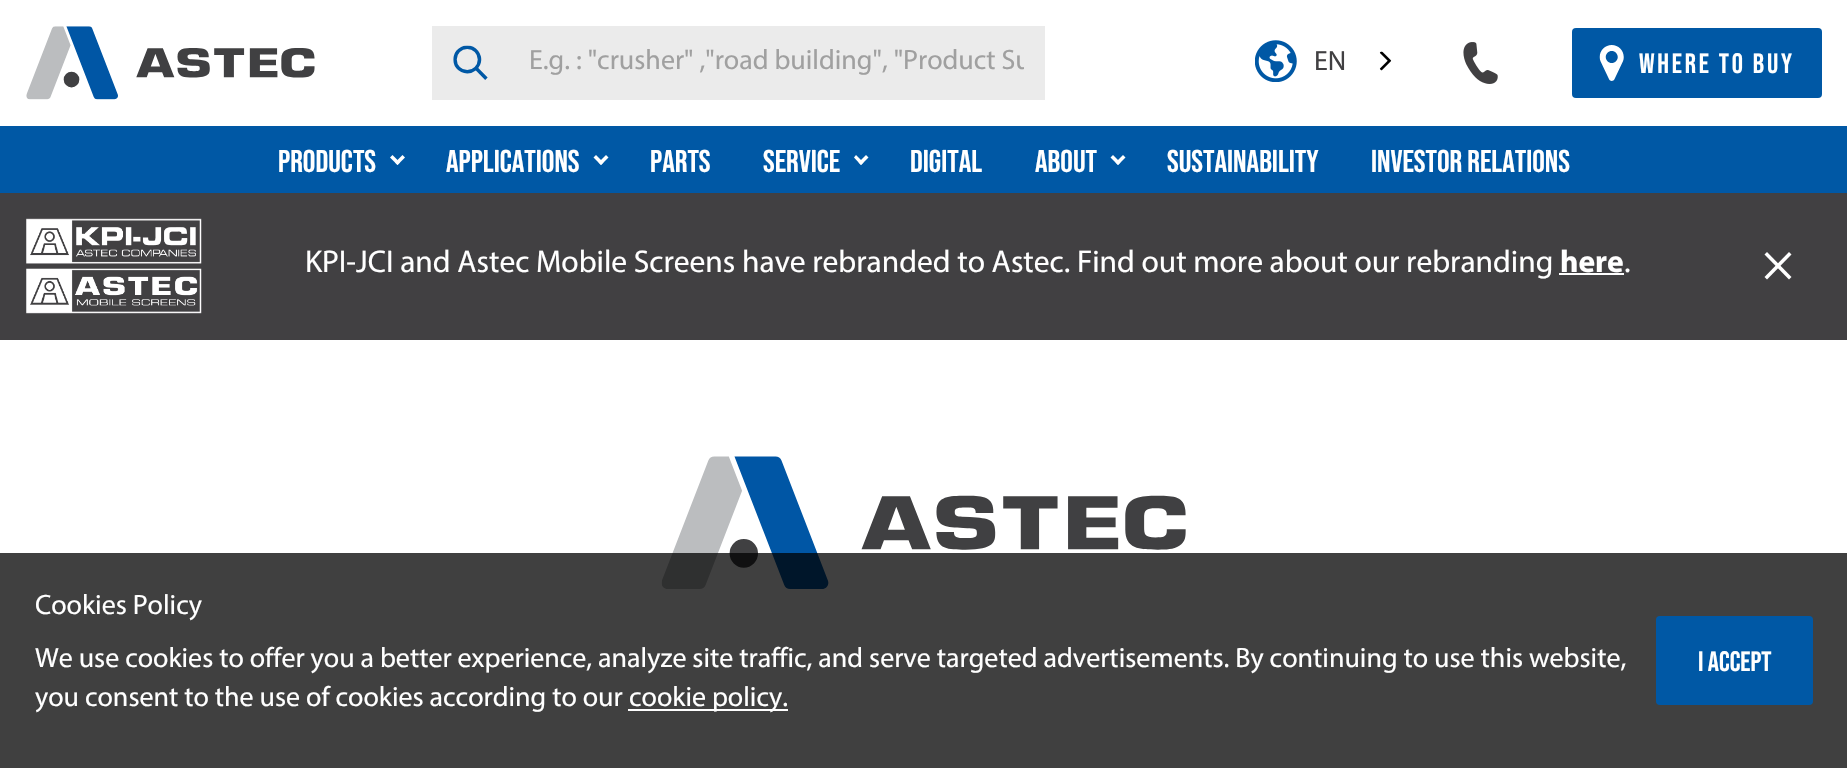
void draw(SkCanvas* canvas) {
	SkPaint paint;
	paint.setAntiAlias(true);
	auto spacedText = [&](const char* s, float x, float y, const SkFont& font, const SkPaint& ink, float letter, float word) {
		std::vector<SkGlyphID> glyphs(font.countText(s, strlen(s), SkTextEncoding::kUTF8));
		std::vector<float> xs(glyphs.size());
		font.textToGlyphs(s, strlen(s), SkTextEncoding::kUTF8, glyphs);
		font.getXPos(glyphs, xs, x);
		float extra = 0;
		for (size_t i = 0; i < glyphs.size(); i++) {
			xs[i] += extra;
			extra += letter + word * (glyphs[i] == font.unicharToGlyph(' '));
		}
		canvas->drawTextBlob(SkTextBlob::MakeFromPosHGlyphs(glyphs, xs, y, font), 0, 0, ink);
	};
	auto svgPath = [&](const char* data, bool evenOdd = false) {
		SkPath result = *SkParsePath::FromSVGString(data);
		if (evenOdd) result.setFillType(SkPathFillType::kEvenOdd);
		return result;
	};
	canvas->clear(0xffffffff);
	canvas->drawImageRect(SkImages::DeferredFromEncodedData(SkData::MakeFromFileName("img1.png")), SkRect::MakeXYWH(26, 26, 289, 74), SkSamplingOptions());
	paint.setColor(0xffebebeb);
	canvas->drawRect(SkRect::MakeXYWH(432, 26, 613, 74), paint);
	canvas->drawImageRect(SkImages::DeferredFromEncodedData(SkData::MakeFromFileName("img2.png")), SkRect::MakeXYWH(453, 45, 35, 35), SkSamplingOptions());
	canvas->save();
	canvas->clipRect(SkRect::MakeXYWH(529, 47, 495, 34));
	SkFont f1(fontMgr->matchFamilyStyle("myriad", SkFontStyle::Normal()), 28);
	f1.setSubpixel(true);
	paint.setColor(0xffa0a0a0);
	canvas->drawString("E.g. : \"crusher\" ,\"road building\", \"Product Su", 529, 69, f1, paint);
	canvas->restore();
	canvas->drawImageRect(SkImages::DeferredFromEncodedData(SkData::MakeFromFileName("img3.png")), SkRect::MakeXYWH(1255, 40, 42, 42), SkSamplingOptions());
	paint.setColor(0xff414042);
	canvas->drawString("EN", 1314, 70, f1, paint);
	canvas->drawImageRect(SkImages::DeferredFromEncodedData(SkData::MakeFromFileName("img4.png")), SkRect::MakeXYWH(1379, 51, 13, 20), SkSamplingOptions());
	canvas->drawImageRect(SkImages::DeferredFromEncodedData(SkData::MakeFromFileName("img5.png")), SkRect::MakeXYWH(1463, 42, 35, 42), SkSamplingOptions());
	paint.setColor(0xff0058a5);
	canvas->drawRoundRect(SkRect::MakeXYWH(1572, 28, 250, 70), 4, 4, paint);
	canvas->drawImageRect(SkImages::DeferredFromEncodedData(SkData::MakeFromFileName("img6.png")), SkRect::MakeXYWH(1599, 45, 25, 36), SkSamplingOptions());
	SkFont f2(fontMgr->matchFamilyStyle("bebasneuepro", SkFontStyle::Bold()), 28);
	f2.setSubpixel(true);
	paint.setColor(0xffffffff);
	spacedText("WHERE TO BUY", 1639, 73, f2, paint, 2.75, 0);
	paint.setColor(0xff0058a5);
	canvas->drawRect(SkRect::MakeXYWH(0, 126, 1847, 67), paint);
	SkFont f3(fontMgr->matchFamilyStyle("bebasneuepro", SkFontStyle::Bold()), 31.5);
	f3.setSubpixel(true);
	paint.setColor(0xffffffff);
	canvas->drawString("PRODUCTS", 278, 172, f3, paint);
	canvas->drawPath(svgPath("M402.5 155L405 157.5L397.5 165L395 162.5Z"), paint);
	canvas->drawPath(svgPath("M392.5 155L400 162.5L397.5 165L390 157.5Z"), paint);
	canvas->drawString("APPLICATIONS", 446, 172, f3, paint);
	canvas->drawPath(svgPath("M606 155L608.5 157.5L601 165L598.5 162.5Z"), paint);
	canvas->drawPath(svgPath("M596 155L603.5 162.5L601 165L593.5 157.5Z"), paint);
	canvas->drawString("PARTS", 650, 172, f3, paint);
	canvas->drawString("SERVICE", 763, 172, f3, paint);
	canvas->drawPath(svgPath("M866 155L868.5 157.5L861 165L858.5 162.5Z"), paint);
	canvas->drawPath(svgPath("M856 155L863.5 162.5L861 165L854 157.5Z"), paint);
	canvas->drawString("DIGITAL", 910, 172, f3, paint);
	canvas->drawString("ABOUT", 1035, 172, f3, paint);
	canvas->drawPath(svgPath("M1123 155L1125.5 157.5L1118 165L1115.5 162.5Z"), paint);
	canvas->drawPath(svgPath("M1113 155L1120.5 162.5L1118 165L1110.5 157.5Z"), paint);
	canvas->drawString("SUSTAINABILITY", 1167, 172, f3, paint);
	canvas->drawString("INVESTOR RELATIONS", 1371, 172, f3, paint);
	paint.setColor(0xff414042);
	canvas->drawRect(SkRect::MakeXYWH(0, 193, 1847, 147), paint);
	canvas->drawImageRect(SkImages::DeferredFromEncodedData(SkData::MakeFromFileName("img7.png")), SkRect::MakeXYWH(26, 218, 176, 96), SkSamplingOptions());
	SkFont f4(fontMgr->matchFamilyStyle("myriad", SkFontStyle::Normal()), 31.5);
	f4.setSubpixel(true);
	paint.setColor(0xffffffff);
	canvas->drawString("KPI-JCI and Astec Mobile Screens have rebranded to Astec. Find out more about our rebranding", 305, 272, f4, paint);
	SkFont f5(fontMgr->matchFamilyStyle("myriad", SkFontStyle::Bold()), 31.5);
	f5.setSubpixel(true);
	canvas->drawString("here", 1560, 272, f5, paint);
	canvas->drawRect(SkRect::MakeXYWH(1559, 273, 65, 2), paint);
	canvas->drawString(".", 1624, 272, f4, paint);
	canvas->drawPath(svgPath("M1767 252L1791.5 277L1789 279.5L1764.5 254.5Z"), paint);
	canvas->drawPath(svgPath("M1764.5 277L1789 252L1791.5 254.5L1767 279.5Z"), paint);
	canvas->drawImageRect(SkImages::DeferredFromEncodedData(SkData::MakeFromFileName("img8.png")), SkRect::MakeXYWH(661, 456, 525, 133), SkSamplingOptions());
	paint.setColor(0xbf000000);
	canvas->drawRect(SkRect::MakeXYWH(0, 553, 1847, 215), paint);
	paint.setColor(0xffffffff);
	canvas->drawString("Cookies Policy", 35, 614, f1, paint);
	canvas->drawString("We use cookies to offer you a better experience, analyze site traffic, and serve targeted advertisements. By continuing to use this website,", 35, 667, f1, paint);
	canvas->drawString("you consent to the use of cookies according to our", 35, 706, f1, paint);
	canvas->drawRect(SkRect::MakeXYWH(628, 709, 160, 2), paint);
	canvas->drawString("cookie policy.", 629, 706, f1, paint);
	paint.setColor(0xff0058a5);
	canvas->drawRoundRect(SkRect::MakeXYWH(1656, 616, 157, 89), 4, 4, paint);
	paint.setColor(0xffffffff);
	canvas->drawString("I ACCEPT", 1698, 671, f2, paint);
}
